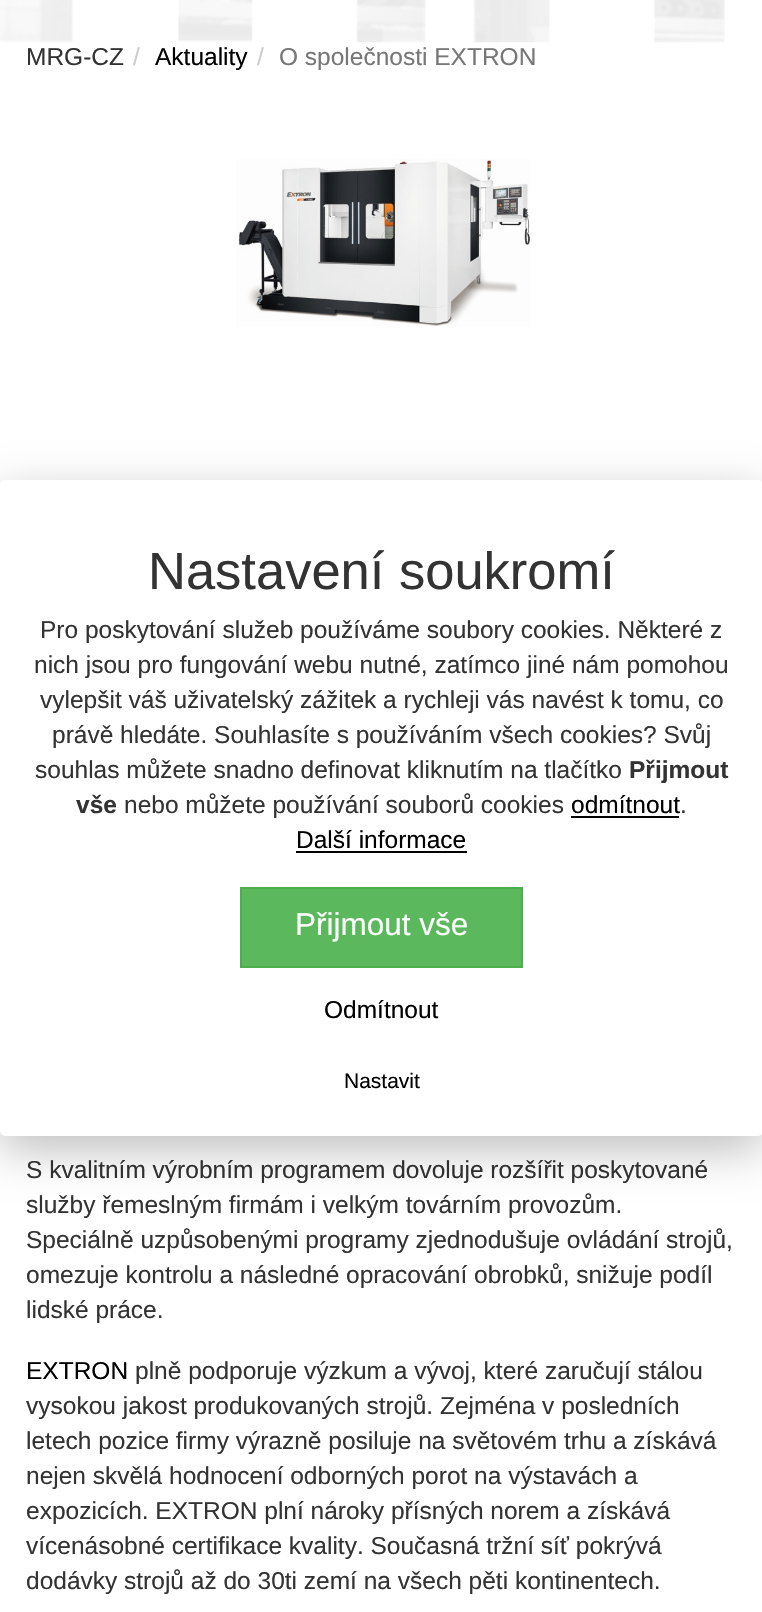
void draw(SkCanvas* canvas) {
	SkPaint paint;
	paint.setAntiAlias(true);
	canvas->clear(0xffffffff);
	canvas->drawImageRect(SkImages::DeferredFromEncodedData(SkData::MakeFromFileName("img1.png")), SkRect::MakeXYWH(0, 0, 725, 43), SkSamplingOptions());
	SkFont f1(fontMgr->matchFamilyStyle("Liberation Sans", SkFontStyle::Normal()), 24.5);
	f1.setSubpixel(true);
	paint.setColor(0xff333333);
	canvas->drawString("MRG-CZ", 26, 65, f1, paint);
	paint.setColor(0xffcccccc);
	canvas->drawString("/", 133, 65, f1, paint);
	paint.setColor(0xff000000);
	canvas->drawString("Aktuality", 155, 65, f1, paint);
	paint.setColor(0xffcccccc);
	canvas->drawString("/", 257, 65, f1, paint);
	paint.setColor(0xff777777);
	canvas->drawString("O společnosti EXTRON", 279, 65, f1, paint);
	canvas->drawImageRect(SkImages::DeferredFromEncodedData(SkData::MakeFromFileName("img2.png")), SkRect::MakeXYWH(236, 159, 294, 168), SkSamplingOptions());
	paint.setColor(0xff333333);
	canvas->drawString("S kvalitním výrobním programem dovoluje rozšířit poskytované", 26, 1178, f1, paint);
	canvas->drawString("služby řemeslným firmám i velkým továrním provozům.", 26, 1213, f1, paint);
	canvas->drawString("Speciálně uzpůsobenými programy zjednodušuje ovládání strojů,", 26, 1248, f1, paint);
	canvas->drawString("omezuje kontrolu a následné opracování obrobků, snižuje podíl", 26, 1283, f1, paint);
	canvas->drawString("lidské práce.", 26, 1318, f1, paint);
	paint.setColor(0xff000000);
	canvas->drawString("EXTRON", 26, 1379, f1, paint);
	paint.setColor(0xff333333);
	canvas->drawString("plně podporuje výzkum a vývoj, které zaručují stálou", 135, 1379, f1, paint);
	canvas->drawString("vysokou jakost produkovaných strojů. Zejména v posledních", 26, 1414, f1, paint);
	canvas->drawString("letech pozice firmy výrazně posiluje na světovém trhu a získává", 26, 1449, f1, paint);
	canvas->drawString("nejen skvělá hodnocení odborných porot na výstavách a", 26, 1484, f1, paint);
	canvas->drawString("expozicích. EXTRON plní nároky přísných norem a získává", 26, 1519, f1, paint);
	canvas->drawString("vícenásobné certifikace kvality. Současná tržní síť pokrývá", 26, 1554, f1, paint);
	canvas->drawString("dodávky strojů až do 30ti zemí na všech pěti kontinentech.", 26, 1589, f1, paint);
	paint.setColor(0x40000000);
	paint.setMaskFilter(SkMaskFilter::MakeBlur(kNormal_SkBlurStyle, 23));
	canvas->drawRoundRect(SkRect::MakeXYWH(0, 494, 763, 656), 5, 5, paint);
	paint.setMaskFilter(nullptr);
	paint.setColor(0xffffffff);
	canvas->drawRoundRect(SkRect::MakeXYWH(0, 480, 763, 656), 5, 5, paint);
	SkFont f2(fontMgr->matchFamilyStyle("Liberation Sans", SkFontStyle::Normal()), 52.5);
	f2.setSubpixel(true);
	paint.setColor(0xff333333);
	canvas->drawString("Nastavení soukromí", 148, 589, f2, paint);
	canvas->drawString("Pro poskytování služeb používáme soubory cookies. Některé z", 40, 638, f1, paint);
	canvas->drawString("nich jsou pro fungování webu nutné, zatímco jiné nám pomohou", 34, 673, f1, paint);
	canvas->drawString("vylepšit váš uživatelský zážitek a rychleji vás navést k tomu, co", 40, 708, f1, paint);
	canvas->drawString("právě hledáte. Souhlasíte s používáním všech cookies? Svůj", 52, 743, f1, paint);
	canvas->drawString("souhlas můžete snadno definovat kliknutím na tlačítko", 35, 778, f1, paint);
	SkFont f3(fontMgr->matchFamilyStyle("Liberation Sans", SkFontStyle::Bold()), 24.5);
	f3.setSubpixel(true);
	canvas->drawString("Přijmout", 629, 778, f3, paint);
	canvas->drawString("vše", 76, 813, f3, paint);
	canvas->drawString("nebo můžete používání souborů cookies", 124, 813, f1, paint);
	paint.setColor(0xff000000);
	canvas->drawString("odmítnout", 571, 813, f1, paint);
	canvas->drawRect(SkRect::MakeXYWH(571, 816, 108, 2), paint);
	paint.setColor(0xff333333);
	canvas->drawString(".", 680, 813, f1, paint);
	paint.setColor(0xff000000);
	canvas->drawString("Další informace", 296, 848, f1, paint);
	canvas->drawRect(SkRect::MakeXYWH(296, 851, 171, 2), paint);
	paint.setColor(0xff5cb85c);
	canvas->drawRect(SkRect::MakeXYWH(241, 888, 281, 79), paint);
	paint.setStroke(true);
	paint.setStrokeWidth(2);
	paint.setColor(0xff4cae4c);
	canvas->drawRect(SkRect::MakeXYWH(241, 888, 281, 79), paint);
	SkFont f4(fontMgr->matchFamilyStyle("Liberation Sans", SkFontStyle::Normal()), 31.5);
	f4.setSubpixel(true);
	paint.setStroke(false);
	paint.setColor(0xffffffff);
	canvas->drawString("Přijmout vše", 295, 935, f4, paint);
	paint.setColor(0xff000000);
	canvas->drawString("Odmítnout", 324, 1018, f1, paint);
	SkFont f5(fontMgr->matchFamilyStyle("Liberation Sans", SkFontStyle::Normal()), 21);
	f5.setSubpixel(true);
	canvas->drawString("Nastavit", 344, 1088, f5, paint);
}
